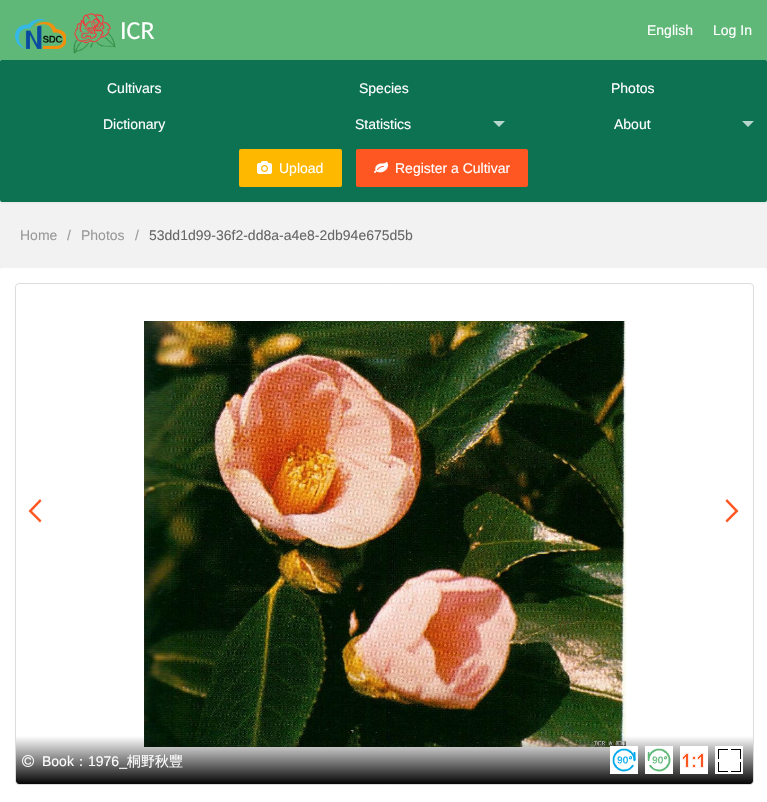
void draw(SkCanvas* canvas) {
	SkPaint paint;
	paint.setAntiAlias(true);
	auto svgPath = [&](const char* data, bool evenOdd = false) {
		SkPath result = *SkParsePath::FromSVGString(data);
		if (evenOdd) result.setFillType(SkPathFillType::kEvenOdd);
		return result;
	};
	canvas->clear(0xfff2f2f2);
	paint.setColor(0x0d000000);
	paint.setMaskFilter(SkMaskFilter::MakeBlur(kNormal_SkBlurStyle, 1));
	canvas->drawRoundRect(SkRect::MakeXYWH(0, 61, 767, 142), 2, 2, paint);
	paint.setMaskFilter(nullptr);
	paint.setColor(0xff5fb878);
	canvas->drawRect(SkRect::MakeXYWH(0, 0, 767, 60), paint);
	canvas->drawImageRect(SkImages::DeferredFromEncodedData(SkData::MakeFromFileName("img1.png")), SkRect::MakeXYWH(15, 19, 51, 30), SkSamplingOptions());
	canvas->drawImageRect(SkImages::DeferredFromEncodedData(SkData::MakeFromFileName("img2.png")), SkRect::MakeXYWH(73, 13, 43, 41), SkSamplingOptions());
	SkFont f1(fontMgr->matchFamilyStyle("Carlito", SkFontStyle::Normal()), 26);
	f1.setSubpixel(true);
	paint.setColor(0xffffffff);
	canvas->drawString("ICR", 120, 39, f1, paint);
	SkFont f2(fontMgr->matchFamilyStyle("Liberation Sans", SkFontStyle::Normal()), 14);
	f2.setSubpixel(true);
	canvas->drawString("English", 647, 35, f2, paint);
	canvas->drawString("Log In", 713, 35, f2, paint);
	paint.setColor(0xff0d7252);
	canvas->drawRoundRect(SkRect::MakeXYWH(0, 60, 767, 142), 2, 2, paint);
	canvas->drawRoundRect(SkRect::MakeXYWH(0, 60, 767, 20), 2, 2, paint);
	paint.setColor(0xffffffff);
	canvas->drawString("Cultivars", 107, 93, f2, paint);
	canvas->drawString("Species", 359, 93, f2, paint);
	canvas->drawString("Photos", 611, 93, f2, paint);
	canvas->drawString("Dictionary", 103, 129, f2, paint);
	canvas->drawString("Statistics", 355, 129, f2, paint);
	paint.setColor(0xffb6d5cb);
	canvas->drawPath(svgPath("M493 121H505L499 127Z"), paint);
	paint.setColor(0xffffffff);
	canvas->drawString("About", 614, 129, f2, paint);
	paint.setColor(0xffb6d5cb);
	canvas->drawPath(svgPath("M742 121H754L748 127Z"), paint);
	paint.setColor(0xffffb800);
	canvas->drawRoundRect(SkRect::MakeXYWH(239, 149, 103, 38), 2, 2, paint);
	canvas->drawImageRect(SkImages::DeferredFromEncodedData(SkData::MakeFromFileName("img3.png")), SkRect::MakeXYWH(257, 161, 15, 13), SkSamplingOptions());
	paint.setColor(0xffffffff);
	canvas->drawString("Upload", 279, 173, f2, paint);
	paint.setColor(0xffff5722);
	canvas->drawRoundRect(SkRect::MakeXYWH(356, 149, 172, 38), 2, 2, paint);
	canvas->drawImageRect(SkImages::DeferredFromEncodedData(SkData::MakeFromFileName("img4.png")), SkRect::MakeXYWH(374, 162, 14, 11), SkSamplingOptions());
	paint.setColor(0xffffffff);
	canvas->drawString("Register a Cultivar", 395, 173, f2, paint);
	paint.setColor(0xff999999);
	canvas->drawString("Home", 20, 240, f2, paint);
	canvas->drawString("/", 67, 240, f2, paint);
	canvas->drawString("Photos", 81, 240, f2, paint);
	canvas->drawString("/", 135, 240, f2, paint);
	paint.setColor(0xff666666);
	canvas->drawString("53dd1d99-36f2-dd8a-a4e8-2db94e675d5b", 149, 240, f2, paint);
	paint.setColor(0xffffffff);
	canvas->drawRoundRect(SkRect::MakeXYWH(0, 268, 767, 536), 2, 2, paint);
	paint.setStroke(true);
	paint.setStrokeWidth(1);
	paint.setColor(0xffdddddd);
	canvas->drawRoundRect(SkRect::MakeXYWH(15.5, 283.5, 738, 501), 3.5, 3.5, paint);
	paint.setStroke(false);
	paint.setColor(0xffff5722);
	canvas->drawPath(svgPath("M41.5 501L40 499L28.5 511L40 522.5L41.5 520.5L32 511Z"), paint);
	canvas->drawPath(svgPath("M725.5 501L727 499L738.5 511L727 522.5L725.5 520.5L735 511Z"), paint);
	canvas->drawImageRect(SkImages::DeferredFromEncodedData(SkData::MakeFromFileName("img5.png")), SkRect::MakeXYWH(144, 321, 482, 426), SkSamplingOptions());
	{
		const SkColor colors[] = {0xff000000, 0x00000000};
		const float stops[] = {0, 1};
		const SkPoint ends[] = {{385, 785}, {385, 736}};
		paint.setShader(SkGradientShader::MakeLinear(ends, colors, stops, 2, SkTileMode::kClamp));
		paint.setAlpha(255);
	}
	canvas->drawPath(svgPath("M16 736H753V781C753 782.5 751.5 784 750 784H19C17.5 784 16 782.5 16 781Z"), paint);
	canvas->drawImageRect(SkImages::DeferredFromEncodedData(SkData::MakeFromFileName("img6.png")), SkRect::MakeXYWH(22, 755, 12, 12), SkSamplingOptions());
	paint.setShader(nullptr);
	paint.setColor(0xffffffff);
	canvas->drawString("Book", 42, 766, f2, paint);
	SkFont f3(fontMgr->matchFamilyStyle("WenQuanYi Zen Hei", SkFontStyle(500, SkFontStyle::kNormal_Width, SkFontStyle::kUpright_Slant)), 14);
	f3.setSubpixel(true);
	canvas->drawString("：", 74, 766, f3, paint);
	canvas->drawString("1976_", 88, 766, f2, paint);
	canvas->drawString("桐野秋豐", 127, 766, f3, paint);
	canvas->drawRect(SkRect::MakeXYWH(610, 746, 28, 28), paint);
	canvas->drawImageRect(SkImages::DeferredFromEncodedData(SkData::MakeFromFileName("img7.png")), SkRect::MakeXYWH(612, 748, 24, 24), SkSamplingOptions());
	canvas->drawRect(SkRect::MakeXYWH(645, 746, 28, 28), paint);
	canvas->drawImageRect(SkImages::DeferredFromEncodedData(SkData::MakeFromFileName("img8.png")), SkRect::MakeXYWH(647, 748, 24, 24), SkSamplingOptions());
	canvas->drawImageRect(SkImages::DeferredFromEncodedData(SkData::MakeFromFileName("img9.png")), SkRect::MakeXYWH(680, 746, 28, 28), SkSamplingOptions());
	canvas->drawImageRect(SkImages::DeferredFromEncodedData(SkData::MakeFromFileName("img10.png")), SkRect::MakeXYWH(715, 746, 28, 28), SkSamplingOptions());
}
